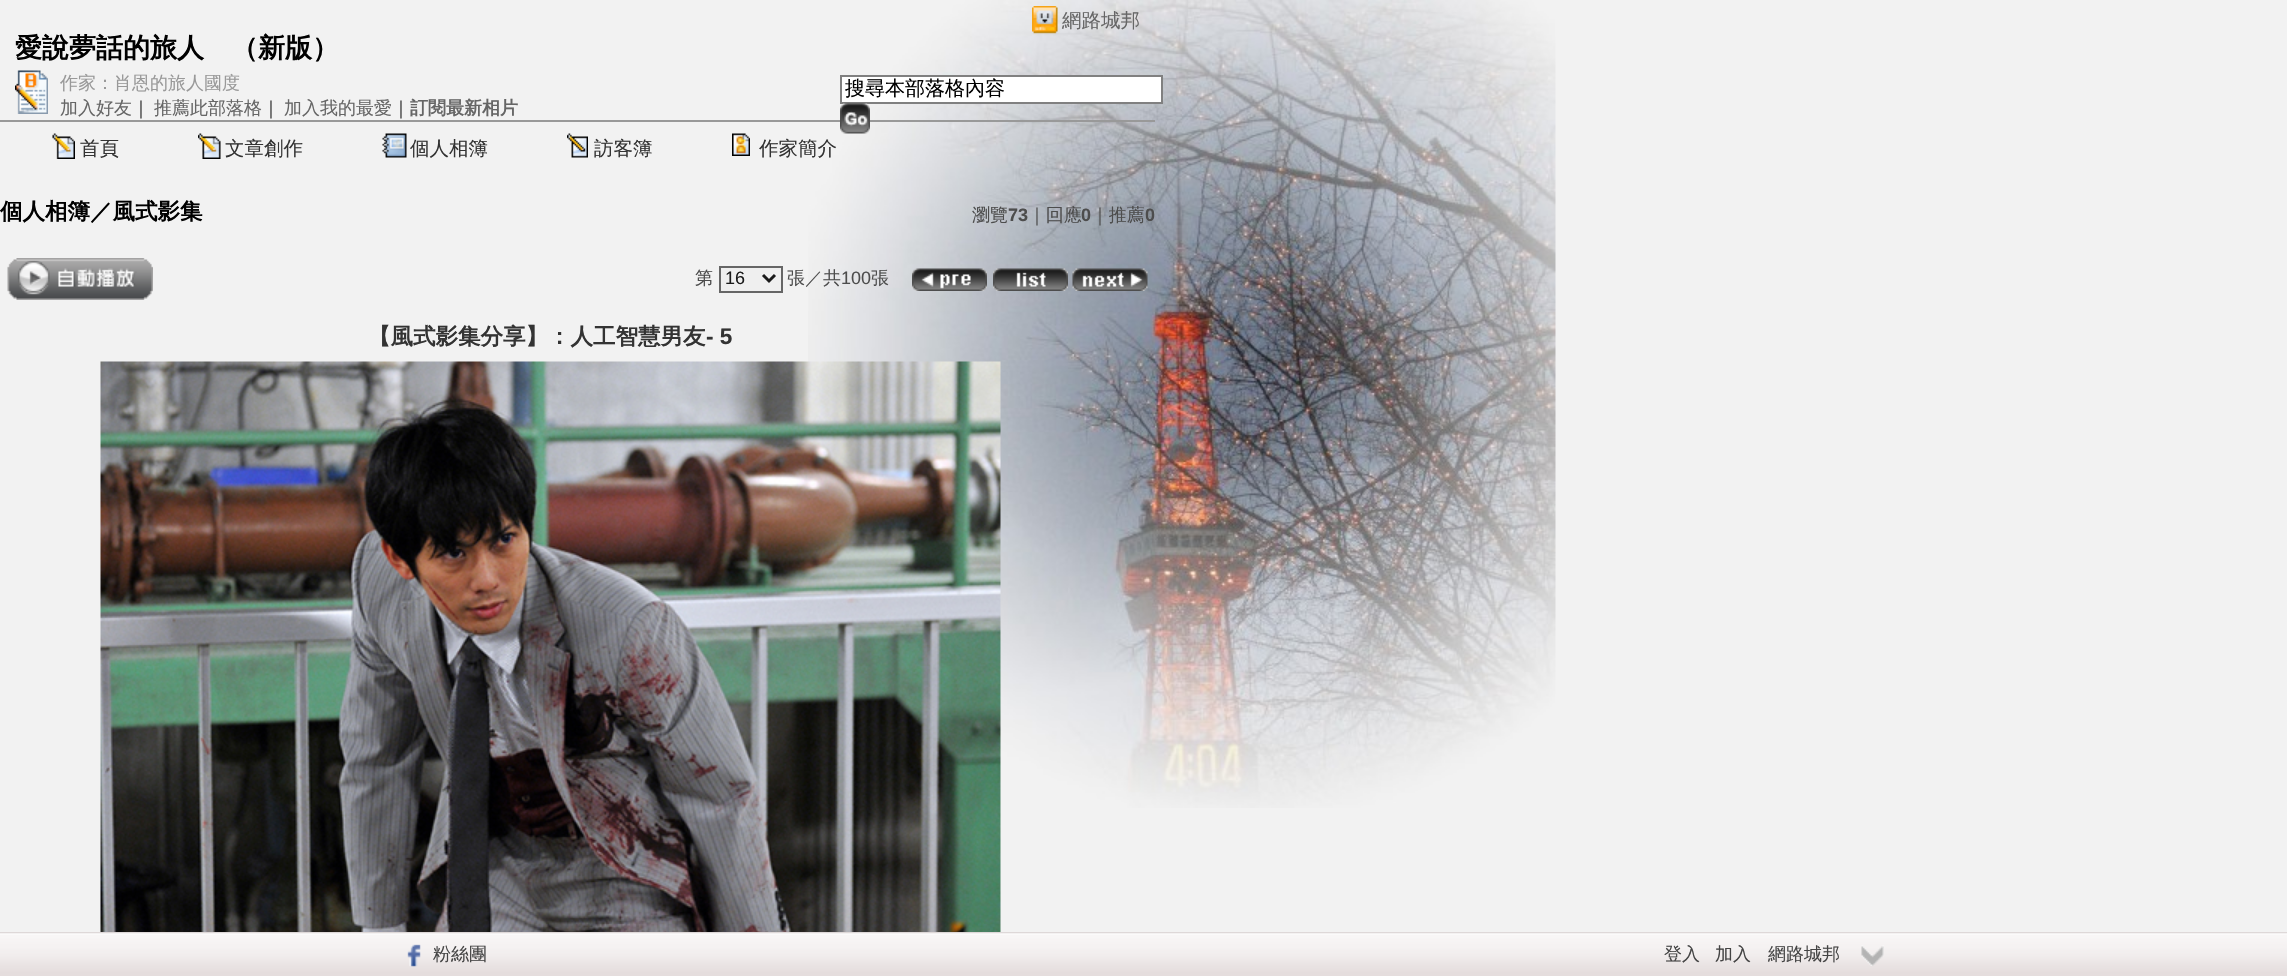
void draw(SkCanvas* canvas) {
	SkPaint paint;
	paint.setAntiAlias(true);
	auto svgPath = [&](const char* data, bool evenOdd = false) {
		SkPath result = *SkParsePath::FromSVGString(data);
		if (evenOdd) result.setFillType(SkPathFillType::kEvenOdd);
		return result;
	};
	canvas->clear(0xfff2f2f2);
	canvas->drawImageRect(SkImages::DeferredFromEncodedData(SkData::MakeFromFileName("img1.png")), SkRect::MakeXYWH(808, 0, 748, 808), SkSamplingOptions());
	canvas->drawImageRect(SkImages::DeferredFromEncodedData(SkData::MakeFromFileName("img2.png")), SkRect::MakeXYWH(1032, 6, 26, 28), SkSamplingOptions());
	SkFont f1(fontMgr->matchFamilyStyle("WenQuanYi Zen Hei", SkFontStyle(500, SkFontStyle::kNormal_Width, SkFontStyle::kUpright_Slant)), 19.5);
	f1.setSubpixel(true);
	paint.setColor(0xff666666);
	canvas->drawString("網路城邦", 1062, 27, f1, paint);
	SkFont f2(fontMgr->matchFamilyStyle("WenQuanYi Zen Hei", SkFontStyle::Bold()), 27);
	f2.setSubpixel(true);
	paint.setColor(0xff000000);
	canvas->drawString("愛說夢話的旅人", 15, 57, f2, paint);
	canvas->drawString("（新版）", 231, 57, f2, paint);
	canvas->drawImageRect(SkImages::DeferredFromEncodedData(SkData::MakeFromFileName("img3.png")), SkRect::MakeXYWH(15, 70, 33, 44), SkSamplingOptions());
	SkFont f3(fontMgr->matchFamilyStyle("WenQuanYi Zen Hei", SkFontStyle(500, SkFontStyle::kNormal_Width, SkFontStyle::kUpright_Slant)), 18);
	f3.setSubpixel(true);
	paint.setColor(0xff999999);
	canvas->drawString("作家：肖恩的旅人國度", 60, 89, f3, paint);
	paint.setColor(0xffffffff);
	canvas->drawRect(SkRect::MakeXYWH(841, 76, 321, 27), paint);
	paint.setStroke(true);
	paint.setStrokeWidth(2);
	paint.setColor(0xff808080);
	canvas->drawRect(SkRect::MakeXYWH(841, 76, 321, 27), paint);
	SkFont f4(fontMgr->matchFamilyStyle("WenQuanYi Zen Hei", SkFontStyle(500, SkFontStyle::kNormal_Width, SkFontStyle::kUpright_Slant)), 20);
	f4.setSubpixel(true);
	paint.setStroke(false);
	paint.setColor(0xff000000);
	canvas->drawString("搜尋本部落格內容", 845, 95, f4, paint);
	paint.setColor(0xff999999);
	canvas->drawRect(SkRect::MakeXYWH(0, 120, 1155, 2), paint);
	canvas->drawImageRect(SkImages::DeferredFromEncodedData(SkData::MakeFromFileName("img4.png")), SkRect::MakeXYWH(840, 103, 30, 31), SkSamplingOptions());
	paint.setColor(0xff666666);
	canvas->drawString("加入好友", 60, 114, f3, paint);
	paint.setColor(0xff333333);
	canvas->drawString("｜", 132, 114, f3, paint);
	paint.setColor(0xff666666);
	canvas->drawString("推薦此部落格", 154, 114, f3, paint);
	paint.setColor(0xff333333);
	canvas->drawString("｜", 262, 114, f3, paint);
	paint.setColor(0xff666666);
	canvas->drawString("加入我的最愛", 284, 114, f3, paint);
	paint.setColor(0xff333333);
	canvas->drawString("｜", 392, 114, f3, paint);
	SkFont f5(fontMgr->matchFamilyStyle("WenQuanYi Zen Hei", SkFontStyle::Bold()), 18);
	f5.setSubpixel(true);
	paint.setColor(0xff666666);
	canvas->drawString("訂閱最新相片", 410, 114, f5, paint);
	canvas->drawImageRect(SkImages::DeferredFromEncodedData(SkData::MakeFromFileName("img5.png")), SkRect::MakeXYWH(52, 133, 23, 26), SkSamplingOptions());
	paint.setColor(0xff333333);
	canvas->drawString("首頁", 80, 155, f1, paint);
	canvas->drawImageRect(SkImages::DeferredFromEncodedData(SkData::MakeFromFileName("img6.png")), SkRect::MakeXYWH(198, 133, 23, 26), SkSamplingOptions());
	canvas->drawString("文章創作", 225, 155, f1, paint);
	canvas->drawImageRect(SkImages::DeferredFromEncodedData(SkData::MakeFromFileName("img7.png")), SkRect::MakeXYWH(382, 133, 25, 25), SkSamplingOptions());
	canvas->drawString("個人相簿", 410, 155, f1, paint);
	canvas->drawImageRect(SkImages::DeferredFromEncodedData(SkData::MakeFromFileName("img8.png")), SkRect::MakeXYWH(567, 133, 21, 25), SkSamplingOptions());
	canvas->drawString("訪客簿", 594, 155, f1, paint);
	canvas->drawImageRect(SkImages::DeferredFromEncodedData(SkData::MakeFromFileName("img9.png")), SkRect::MakeXYWH(732, 133, 18, 23), SkSamplingOptions());
	canvas->drawString("作家簡介", 759, 155, f1, paint);
	SkFont f6(fontMgr->matchFamilyStyle("WenQuanYi Zen Hei", SkFontStyle::Bold()), 22.5);
	f6.setSubpixel(true);
	paint.setColor(0xff000000);
	canvas->drawString("個人相簿／風式影集", 0, 219, f6, paint);
	paint.setColor(0xff4d4d4d);
	canvas->drawString("瀏覽", 972, 221, f3, paint);
	SkFont f7(fontMgr->matchFamilyStyle("Liberation Sans", SkFontStyle::Bold()), 18);
	f7.setSubpixel(true);
	canvas->drawString("73", 1008, 221, f7, paint);
	canvas->drawString("｜回應", 1028, 221, f3, paint);
	canvas->drawString("0", 1081, 221, f7, paint);
	canvas->drawString("｜推薦", 1091, 221, f3, paint);
	canvas->drawString("0", 1145, 221, f7, paint);
	canvas->drawImageRect(SkImages::DeferredFromEncodedData(SkData::MakeFromFileName("img10.png")), SkRect::MakeXYWH(7, 258, 146, 42), SkSamplingOptions());
	canvas->drawString("第", 695, 284, f3, paint);
	paint.setColor(0xffefefef);
	canvas->drawRect(SkRect::MakeXYWH(720, 267, 62, 25), paint);
	paint.setStroke(true);
	paint.setColor(0xff666666);
	canvas->drawRect(SkRect::MakeXYWH(720, 267, 62, 25), paint);
	paint.setStrokeWidth(3);
	paint.setColor(0xff1a1a1a);
	canvas->drawPath(svgPath("M763 275L769 281L775 275"), paint);
	SkFont f8(fontMgr->matchFamilyStyle("Liberation Sans", SkFontStyle::Normal()), 18);
	f8.setSubpixel(true);
	paint.setStroke(false);
	canvas->drawString("16", 725, 284, f8, paint);
	paint.setColor(0xff4d4d4d);
	canvas->drawString("張／共", 787, 284, f3, paint);
	canvas->drawString("100", 841, 284, f8, paint);
	canvas->drawString("張", 871, 284, f3, paint);
	canvas->drawImageRect(SkImages::DeferredFromEncodedData(SkData::MakeFromFileName("img11.png")), SkRect::MakeXYWH(912, 268, 75, 23), SkSamplingOptions());
	canvas->drawImageRect(SkImages::DeferredFromEncodedData(SkData::MakeFromFileName("img12.png")), SkRect::MakeXYWH(993, 268, 75, 23), SkSamplingOptions());
	canvas->drawImageRect(SkImages::DeferredFromEncodedData(SkData::MakeFromFileName("img13.png")), SkRect::MakeXYWH(1072, 268, 76, 23), SkSamplingOptions());
	paint.setColor(0xff333333);
	canvas->drawString("【風式影集分享】：人工智慧男友", 368, 344, f6, paint);
	SkFont f9(fontMgr->matchFamilyStyle("Liberation Sans", SkFontStyle::Bold()), 22.5);
	f9.setSubpixel(true);
	canvas->drawString("- 5", 706, 344, f9, paint);
	canvas->drawImageRect(SkImages::DeferredFromEncodedData(SkData::MakeFromFileName("img14.png")), SkRect::MakeXYWH(100, 361, 901, 571), SkSamplingOptions());
	canvas->drawImageRect(SkImages::DeferredFromEncodedData(SkData::MakeFromFileName("img15.png")), SkRect::MakeXYWH(0, 932, 2287, 44), SkSamplingOptions());
	canvas->drawImageRect(SkImages::DeferredFromEncodedData(SkData::MakeFromFileName("img16.png")), SkRect::MakeXYWH(407, 944, 14, 23), SkSamplingOptions());
	paint.setColor(0xff444444);
	canvas->drawString("粉絲團", 433, 960, f3, paint);
	canvas->drawString("登入", 1664, 960, f3, paint);
	canvas->drawString("加入", 1715, 960, f3, paint);
	canvas->drawString("網路城邦", 1768, 960, f3, paint);
	canvas->drawImageRect(SkImages::DeferredFromEncodedData(SkData::MakeFromFileName("img17.png")), SkRect::MakeXYWH(1861, 945, 23, 21), SkSamplingOptions());
}
